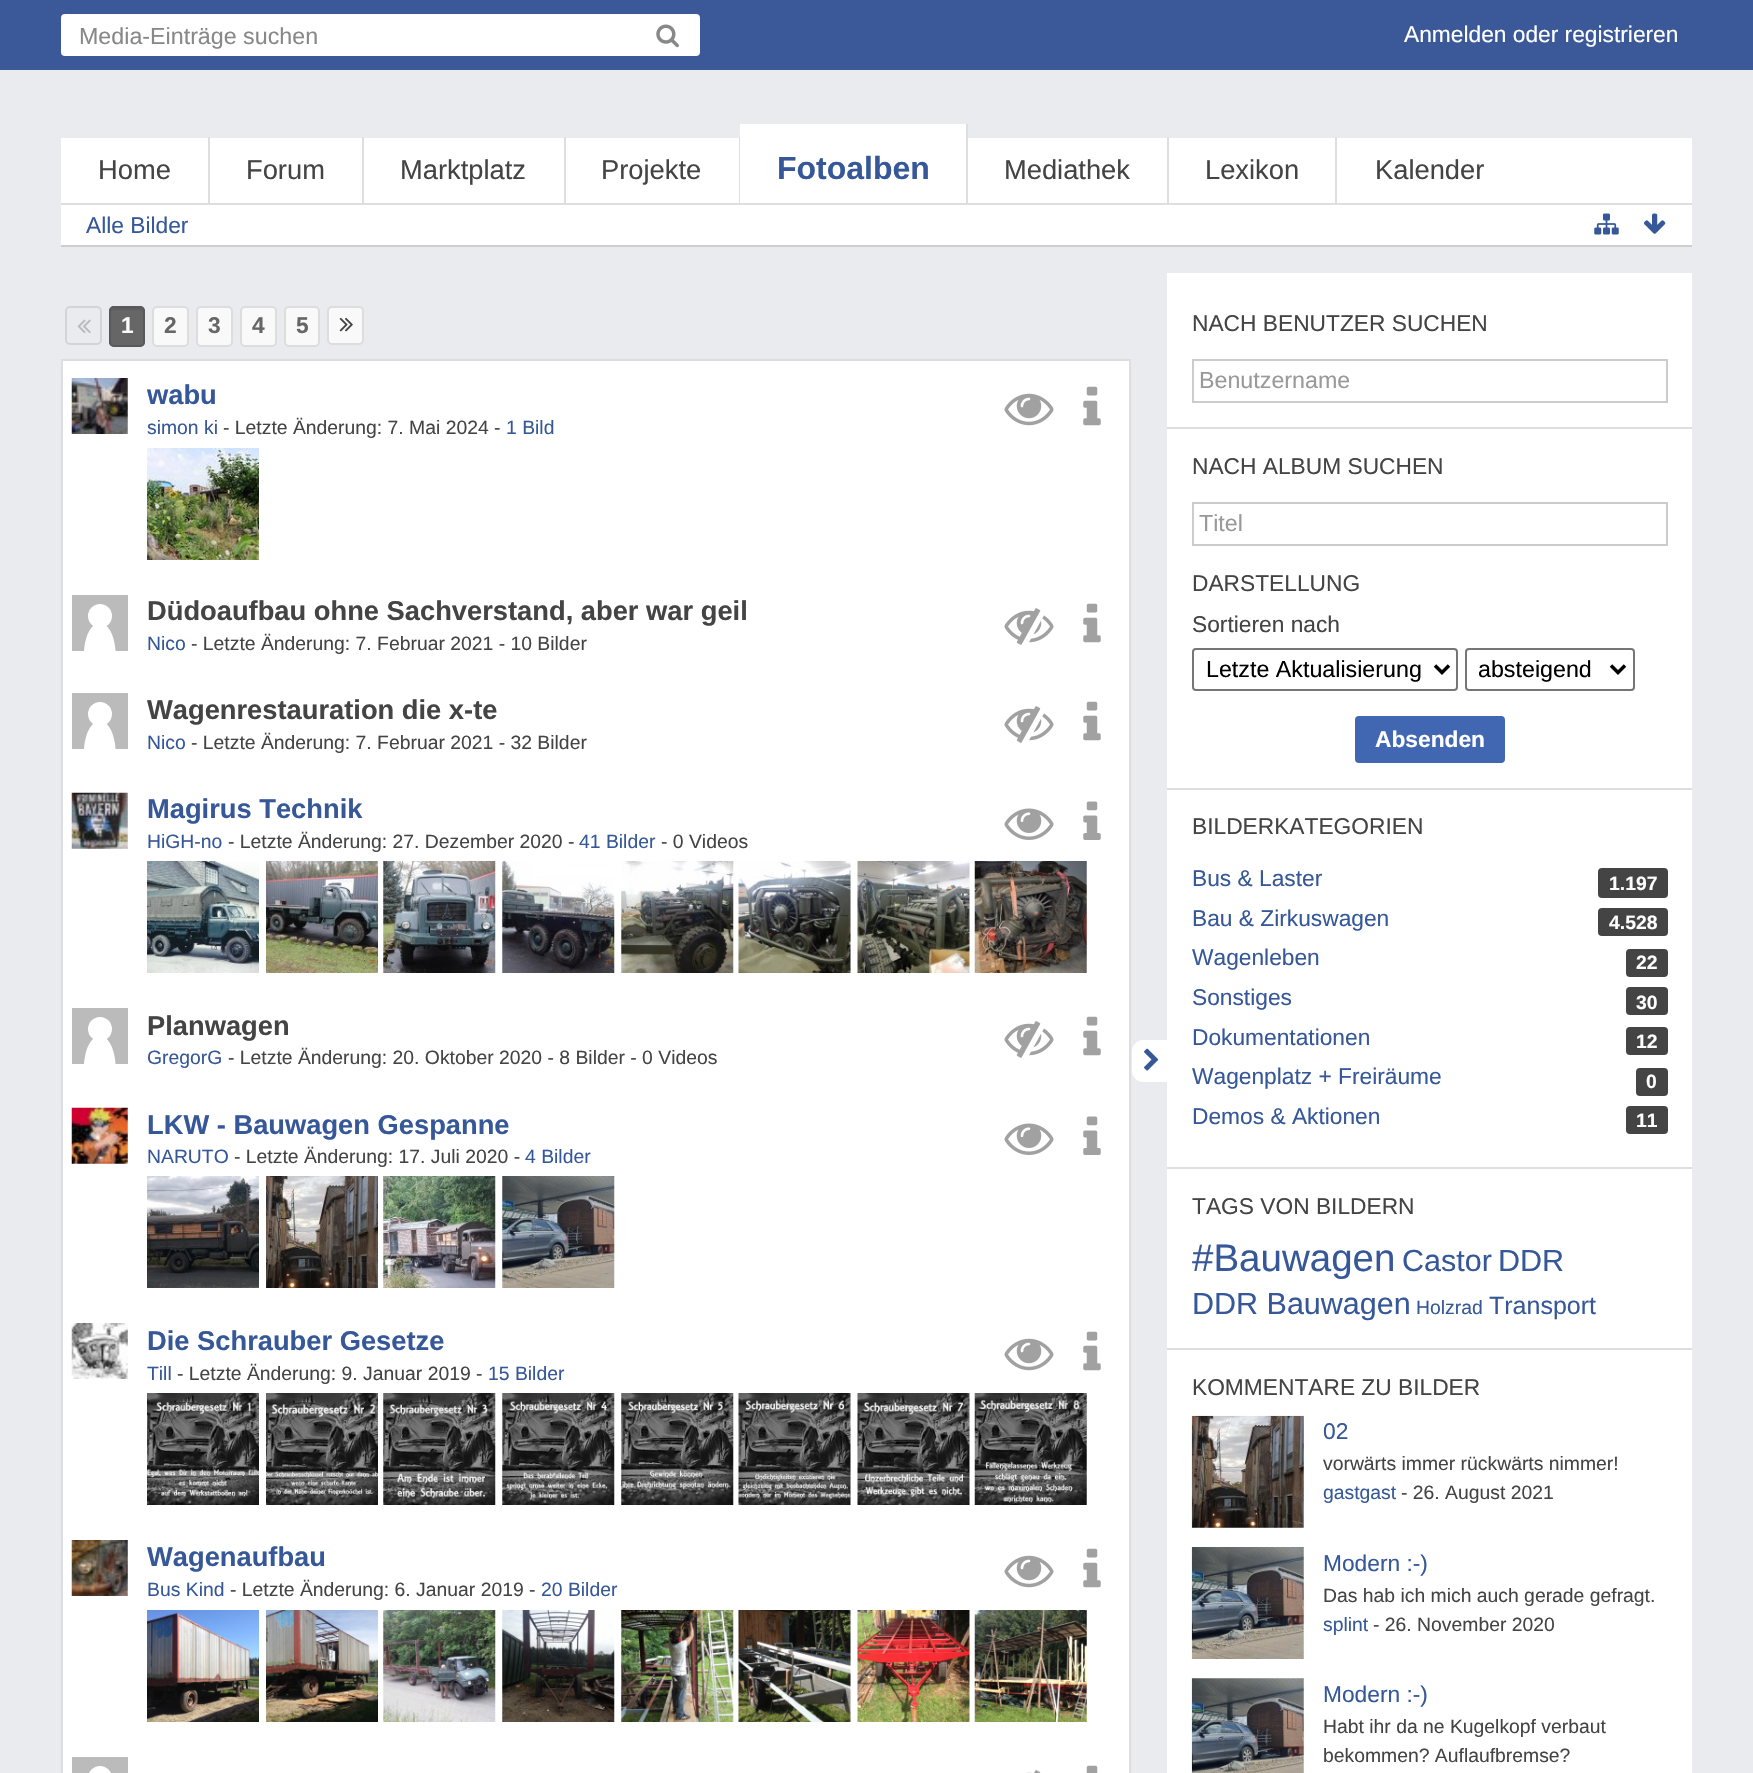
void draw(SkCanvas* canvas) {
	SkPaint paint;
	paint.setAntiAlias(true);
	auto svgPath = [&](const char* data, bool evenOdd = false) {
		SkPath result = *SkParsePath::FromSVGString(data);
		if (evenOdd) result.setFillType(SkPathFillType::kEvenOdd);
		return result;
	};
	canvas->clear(0xffe9ebee);
	paint.setColor(0xff3b5998);
	canvas->drawRect(SkRect::MakeXYWH(0, 0, 1753, 70), paint);
	paint.setColor(0xffffffff);
	canvas->drawRoundRect(SkRect::MakeXYWH(61, 14, 639, 42), 4, 4, paint);
	SkFont f1(fontMgr->matchFamilyStyle("Liberation Sans", SkFontStyle::Normal()), 23.25);
	f1.setSubpixel(true);
	paint.setColor(0xff888888);
	canvas->drawString("Media-Einträge suchen", 79, 44, f1, paint);
	canvas->drawImageRect(SkImages::DeferredFromEncodedData(SkData::MakeFromFileName("img1.png")), SkRect::MakeXYWH(656, 24, 23, 24), SkSamplingOptions());
	SkFont f2(fontMgr->matchFamilyStyle("Liberation Sans", SkFontStyle::Normal()), 22.75);
	f2.setSubpixel(true);
	paint.setColor(0xffffffff);
	canvas->drawString("Anmelden oder registrieren", 1404, 42, f2, paint);
	canvas->drawRect(SkRect::MakeXYWH(61, 138, 1631, 65), paint);
	paint.setColor(0xffdedede);
	canvas->drawRect(SkRect::MakeXYWH(208, 137, 2, 66), paint);
	SkFont f3(fontMgr->matchFamilyStyle("Liberation Sans", SkFontStyle::Normal()), 27.3);
	f3.setSubpixel(true);
	paint.setColor(0xff444444);
	canvas->drawString("Home", 98, 179, f3, paint);
	paint.setColor(0xffdedede);
	canvas->drawRect(SkRect::MakeXYWH(362, 137, 2, 66), paint);
	paint.setColor(0xff444444);
	canvas->drawString("Forum", 246, 179, f3, paint);
	paint.setColor(0xffdedede);
	canvas->drawRect(SkRect::MakeXYWH(564, 137, 2, 66), paint);
	paint.setColor(0xff444444);
	canvas->drawString("Marktplatz", 400, 179, f3, paint);
	paint.setColor(0xffdedede);
	canvas->drawRect(SkRect::MakeXYWH(739, 137, 1, 66), paint);
	paint.setColor(0xff444444);
	canvas->drawString("Projekte", 601, 179, f3, paint);
	paint.setColor(0xffffffff);
	canvas->drawRect(SkRect::MakeXYWH(740, 124, 226, 14), paint);
	paint.setColor(0xffdedede);
	canvas->drawRect(SkRect::MakeXYWH(966, 124, 2, 79), paint);
	SkFont f4(fontMgr->matchFamilyStyle("Liberation Sans", SkFontStyle::Bold()), 32);
	f4.setSubpixel(true);
	paint.setColor(0xff365899);
	canvas->drawString("Fotoalben", 777, 179, f4, paint);
	paint.setColor(0xffdedede);
	canvas->drawRect(SkRect::MakeXYWH(1167, 137, 2, 66), paint);
	paint.setColor(0xff444444);
	canvas->drawString("Mediathek", 1004, 179, f3, paint);
	paint.setColor(0xffdedede);
	canvas->drawRect(SkRect::MakeXYWH(1335, 137, 2, 66), paint);
	paint.setColor(0xff444444);
	canvas->drawString("Lexikon", 1205, 179, f3, paint);
	canvas->drawString("Kalender", 1375, 179, f3, paint);
	paint.setColor(0xffffffff);
	canvas->drawRect(SkRect::MakeXYWH(61, 205, 1631, 40), paint);
	paint.setColor(0xffdedede);
	canvas->drawRect(SkRect::MakeXYWH(61, 203, 1631, 2), paint);
	paint.setColor(0xffcecece);
	canvas->drawRect(SkRect::MakeXYWH(61, 245, 1631, 2), paint);
	paint.setColor(0xff365899);
	canvas->drawString("Alle Bilder", 86, 233, f2, paint);
	canvas->drawImageRect(SkImages::DeferredFromEncodedData(SkData::MakeFromFileName("img2.png")), SkRect::MakeXYWH(1594, 213, 25, 22), SkSamplingOptions());
	canvas->drawImageRect(SkImages::DeferredFromEncodedData(SkData::MakeFromFileName("img3.png")), SkRect::MakeXYWH(1644, 213, 22, 21), SkSamplingOptions());
	paint.setColor(0xffffffff);
	canvas->drawRect(SkRect::MakeXYWH(1167, 273, 525, 1500), paint);
	paint.setStroke(true);
	paint.setStrokeWidth(2);
	paint.setColor(0xffd2d4d6);
	canvas->drawRoundRect(SkRect::MakeXYWH(66, 307, 35, 37), 4, 4, paint);
	canvas->drawImageRect(SkImages::DeferredFromEncodedData(SkData::MakeFromFileName("img4.png")), SkRect::MakeXYWH(77, 319, 14, 14), SkSamplingOptions());
	paint.setStroke(false);
	paint.setColor(0xff666666);
	canvas->drawRoundRect(SkRect::MakeXYWH(109, 306, 36, 41), 5, 5, paint);
	paint.setColor(0xff5c5c5c);
	canvas->drawPath(svgPath("M114 310H140C142 310 144 311 144 313C144 307.5 140.5 308 135.5 308H118.5C113.5 308 110 307.5 110 313C110 311 112 310 114 310Z"), paint);
	paint.setStroke(true);
	paint.setColor(0xff595959);
	canvas->drawRoundRect(SkRect::MakeXYWH(110, 307, 34, 39), 4, 4, paint);
	SkFont f5(fontMgr->matchFamilyStyle("Liberation Sans", SkFontStyle::Bold()), 22.75);
	f5.setSubpixel(true);
	paint.setStroke(false);
	paint.setColor(0xfff9f9f9);
	canvas->drawString("1", 121, 333, f5, paint);
	canvas->drawRoundRect(SkRect::MakeXYWH(153, 307, 35, 39), 4, 4, paint);
	paint.setStroke(true);
	paint.setColor(0xffdddddd);
	canvas->drawRoundRect(SkRect::MakeXYWH(153, 307, 35, 39), 4, 4, paint);
	paint.setStroke(false);
	paint.setColor(0xff666666);
	canvas->drawString("2", 164, 333, f5, paint);
	paint.setColor(0xfff9f9f9);
	canvas->drawRoundRect(SkRect::MakeXYWH(197, 307, 35, 39), 4, 4, paint);
	paint.setStroke(true);
	paint.setColor(0xffdddddd);
	canvas->drawRoundRect(SkRect::MakeXYWH(197, 307, 35, 39), 4, 4, paint);
	paint.setStroke(false);
	paint.setColor(0xff666666);
	canvas->drawString("3", 208, 333, f5, paint);
	paint.setColor(0xfff9f9f9);
	canvas->drawRoundRect(SkRect::MakeXYWH(241, 307, 35, 39), 4, 4, paint);
	paint.setStroke(true);
	paint.setColor(0xffdddddd);
	canvas->drawRoundRect(SkRect::MakeXYWH(241, 307, 35, 39), 4, 4, paint);
	paint.setStroke(false);
	paint.setColor(0xff666666);
	canvas->drawString("4", 252, 333, f5, paint);
	paint.setColor(0xfff9f9f9);
	canvas->drawRoundRect(SkRect::MakeXYWH(285, 307, 34, 39), 4, 4, paint);
	paint.setStroke(true);
	paint.setColor(0xffdddddd);
	canvas->drawRoundRect(SkRect::MakeXYWH(285, 307, 34, 39), 4, 4, paint);
	paint.setStroke(false);
	paint.setColor(0xff666666);
	canvas->drawString("5", 296, 333, f5, paint);
	paint.setColor(0xfff9f9f9);
	canvas->drawRoundRect(SkRect::MakeXYWH(328, 307, 35, 37), 4, 4, paint);
	paint.setStroke(true);
	paint.setColor(0xffdddddd);
	canvas->drawRoundRect(SkRect::MakeXYWH(328, 307, 35, 37), 4, 4, paint);
	canvas->drawImageRect(SkImages::DeferredFromEncodedData(SkData::MakeFromFileName("img5.png")), SkRect::MakeXYWH(339, 317, 14, 15), SkSamplingOptions());
	paint.setStroke(false);
	paint.setColor(0xffffffff);
	canvas->drawRect(SkRect::MakeXYWH(63, 361, 1066, 1412), paint);
	paint.setColor(0xffdddddd);
	canvas->drawRect(SkRect::MakeXYWH(61, 359, 1070, 2), paint);
	canvas->drawRect(SkRect::MakeXYWH(1129, 359, 2, 1414), paint);
	canvas->drawRect(SkRect::MakeXYWH(61, 359, 2, 1414), paint);
	canvas->drawImageRect(SkImages::DeferredFromEncodedData(SkData::MakeFromFileName("img6.png")), SkRect::MakeXYWH(71, 378, 57, 56), SkSamplingOptions());
	SkFont f6(fontMgr->matchFamilyStyle("Liberation Sans", SkFontStyle::Bold()), 27.3);
	f6.setSubpixel(true);
	paint.setColor(0xff365899);
	canvas->drawString("wabu", 147, 404, f6, paint);
	SkFont f7(fontMgr->matchFamilyStyle("Liberation Sans", SkFontStyle::Normal()), 19.35);
	f7.setSubpixel(true);
	paint.setColor(0xff444444);
	canvas->drawString("- Letzte Änderung: 7. Mai 2024 -", 223, 434, f7, paint);
	canvas->drawImageRect(SkImages::DeferredFromEncodedData(SkData::MakeFromFileName("img7.png")), SkRect::MakeXYWH(1004, 393, 50, 33), SkSamplingOptions());
	canvas->drawImageRect(SkImages::DeferredFromEncodedData(SkData::MakeFromFileName("img8.png")), SkRect::MakeXYWH(1083, 386, 18, 40), SkSamplingOptions());
	paint.setColor(0xff365899);
	canvas->drawString("simon ki", 147, 434, f7, paint);
	canvas->drawString("1 Bild", 506, 434, f7, paint);
	canvas->drawImageRect(SkImages::DeferredFromEncodedData(SkData::MakeFromFileName("img9.png")), SkRect::MakeXYWH(147, 448, 112, 112), SkSamplingOptions());
	paint.setColor(0xffbbbbbb);
	canvas->drawRect(SkRect::MakeXYWH(72, 595, 56, 56), paint);
	paint.setColor(0xffffffff);
	canvas->drawPath(svgPath("M84 651C85 635 91.5 623 100 623C108 623 114.5 635 115.5 651"), paint);
	canvas->drawCircle(100, 616, 12, paint);
	paint.setColor(0xff444444);
	canvas->drawString("Düdoaufbau ohne Sachverstand, aber war geil", 147, 620, f6, paint);
	canvas->drawImageRect(SkImages::DeferredFromEncodedData(SkData::MakeFromFileName("img10.png")), SkRect::MakeXYWH(1004, 608, 50, 37), SkSamplingOptions());
	canvas->drawImageRect(SkImages::DeferredFromEncodedData(SkData::MakeFromFileName("img8.png")), SkRect::MakeXYWH(1083, 603, 18, 40), SkSamplingOptions());
	paint.setColor(0xff365899);
	canvas->drawString("Nico", 147, 650, f7, paint);
	paint.setColor(0xff444444);
	canvas->drawString("- Letzte Änderung: 7. Februar 2021 - 10 Bilder", 191, 650, f7, paint);
	paint.setColor(0xffbbbbbb);
	canvas->drawRect(SkRect::MakeXYWH(72, 693, 56, 56), paint);
	paint.setColor(0xffffffff);
	canvas->drawPath(svgPath("M84 749C85 733 91.5 721 100 721C108 721 114.5 733 115.5 749"), paint);
	canvas->drawCircle(100, 714, 12, paint);
	paint.setColor(0xff444444);
	canvas->drawString("Wagenrestauration die x-te", 147, 719, f6, paint);
	canvas->drawImageRect(SkImages::DeferredFromEncodedData(SkData::MakeFromFileName("img10.png")), SkRect::MakeXYWH(1004, 706, 50, 37), SkSamplingOptions());
	canvas->drawImageRect(SkImages::DeferredFromEncodedData(SkData::MakeFromFileName("img8.png")), SkRect::MakeXYWH(1083, 701, 18, 40), SkSamplingOptions());
	paint.setColor(0xff365899);
	canvas->drawString("Nico", 147, 749, f7, paint);
	paint.setColor(0xff444444);
	canvas->drawString("- Letzte Änderung: 7. Februar 2021 - 32 Bilder", 191, 749, f7, paint);
	canvas->drawImageRect(SkImages::DeferredFromEncodedData(SkData::MakeFromFileName("img11.png")), SkRect::MakeXYWH(71, 792, 57, 57), SkSamplingOptions());
	paint.setColor(0xff365899);
	canvas->drawString("Magirus Technik", 147, 818, f6, paint);
	canvas->drawImageRect(SkImages::DeferredFromEncodedData(SkData::MakeFromFileName("img12.png")), SkRect::MakeXYWH(1004, 808, 50, 32), SkSamplingOptions());
	canvas->drawImageRect(SkImages::DeferredFromEncodedData(SkData::MakeFromFileName("img13.png")), SkRect::MakeXYWH(1083, 801, 18, 39), SkSamplingOptions());
	canvas->drawString("HiGH-no", 147, 848, f7, paint);
	paint.setColor(0xff444444);
	canvas->drawString("- Letzte Änderung: 27. Dezember 2020 -", 228, 848, f7, paint);
	paint.setColor(0xff365899);
	canvas->drawString("41 Bilder", 579, 848, f7, paint);
	paint.setColor(0xff444444);
	canvas->drawString("- 0 Videos", 661, 848, f7, paint);
	canvas->drawImageRect(SkImages::DeferredFromEncodedData(SkData::MakeFromFileName("img14.png")), SkRect::MakeXYWH(147, 861, 112, 112), SkSamplingOptions());
	canvas->drawImageRect(SkImages::DeferredFromEncodedData(SkData::MakeFromFileName("img15.png")), SkRect::MakeXYWH(266, 861, 112, 112), SkSamplingOptions());
	canvas->drawImageRect(SkImages::DeferredFromEncodedData(SkData::MakeFromFileName("img16.png")), SkRect::MakeXYWH(383, 861, 113, 112), SkSamplingOptions());
	canvas->drawImageRect(SkImages::DeferredFromEncodedData(SkData::MakeFromFileName("img17.png")), SkRect::MakeXYWH(502, 861, 113, 112), SkSamplingOptions());
	canvas->drawImageRect(SkImages::DeferredFromEncodedData(SkData::MakeFromFileName("img18.png")), SkRect::MakeXYWH(621, 861, 113, 112), SkSamplingOptions());
	canvas->drawImageRect(SkImages::DeferredFromEncodedData(SkData::MakeFromFileName("img19.png")), SkRect::MakeXYWH(738, 861, 113, 112), SkSamplingOptions());
	canvas->drawImageRect(SkImages::DeferredFromEncodedData(SkData::MakeFromFileName("img20.png")), SkRect::MakeXYWH(857, 861, 113, 112), SkSamplingOptions());
	canvas->drawImageRect(SkImages::DeferredFromEncodedData(SkData::MakeFromFileName("img21.png")), SkRect::MakeXYWH(974, 861, 113, 112), SkSamplingOptions());
	paint.setColor(0xffbbbbbb);
	canvas->drawRect(SkRect::MakeXYWH(72, 1008, 56, 56), paint);
	paint.setColor(0xffffffff);
	canvas->drawPath(svgPath("M84 1064C85 1048 91.5 1036 100 1036C108 1036 114.5 1048 115.5 1064"), paint);
	canvas->drawCircle(100, 1029, 12, paint);
	paint.setColor(0xff444444);
	canvas->drawString("Planwagen", 147, 1035, f6, paint);
	canvas->drawString("- Letzte Änderung: 20. Oktober 2020 - 8 Bilder - 0 Videos", 228, 1064, f7, paint);
	canvas->drawImageRect(SkImages::DeferredFromEncodedData(SkData::MakeFromFileName("img10.png")), SkRect::MakeXYWH(1004, 1021, 50, 37), SkSamplingOptions());
	canvas->drawImageRect(SkImages::DeferredFromEncodedData(SkData::MakeFromFileName("img8.png")), SkRect::MakeXYWH(1083, 1016, 18, 40), SkSamplingOptions());
	paint.setColor(0xff365899);
	canvas->drawString("GregorG", 147, 1064, f7, paint);
	canvas->drawImageRect(SkImages::DeferredFromEncodedData(SkData::MakeFromFileName("img22.png")), SkRect::MakeXYWH(71, 1107, 57, 57), SkSamplingOptions());
	canvas->drawString("LKW - Bauwagen Gespanne", 147, 1134, f6, paint);
	canvas->drawImageRect(SkImages::DeferredFromEncodedData(SkData::MakeFromFileName("img12.png")), SkRect::MakeXYWH(1004, 1123, 50, 32), SkSamplingOptions());
	canvas->drawImageRect(SkImages::DeferredFromEncodedData(SkData::MakeFromFileName("img13.png")), SkRect::MakeXYWH(1083, 1116, 18, 39), SkSamplingOptions());
	canvas->drawString("NARUTO", 147, 1163, f7, paint);
	paint.setColor(0xff444444);
	canvas->drawString("- Letzte Änderung: 17. Juli 2020 -", 234, 1163, f7, paint);
	paint.setColor(0xff365899);
	canvas->drawString("4 Bilder", 525, 1163, f7, paint);
	canvas->drawImageRect(SkImages::DeferredFromEncodedData(SkData::MakeFromFileName("img23.png")), SkRect::MakeXYWH(147, 1176, 112, 112), SkSamplingOptions());
	canvas->drawImageRect(SkImages::DeferredFromEncodedData(SkData::MakeFromFileName("img24.png")), SkRect::MakeXYWH(266, 1176, 112, 112), SkSamplingOptions());
	canvas->drawImageRect(SkImages::DeferredFromEncodedData(SkData::MakeFromFileName("img25.png")), SkRect::MakeXYWH(383, 1176, 113, 112), SkSamplingOptions());
	canvas->drawImageRect(SkImages::DeferredFromEncodedData(SkData::MakeFromFileName("img26.png")), SkRect::MakeXYWH(502, 1176, 113, 112), SkSamplingOptions());
	canvas->drawImageRect(SkImages::DeferredFromEncodedData(SkData::MakeFromFileName("img27.png")), SkRect::MakeXYWH(71, 1323, 57, 56), SkSamplingOptions());
	canvas->drawString("Die Schrauber Gesetze", 147, 1350, f6, paint);
	canvas->drawImageRect(SkImages::DeferredFromEncodedData(SkData::MakeFromFileName("img7.png")), SkRect::MakeXYWH(1004, 1338, 50, 33), SkSamplingOptions());
	canvas->drawImageRect(SkImages::DeferredFromEncodedData(SkData::MakeFromFileName("img8.png")), SkRect::MakeXYWH(1083, 1331, 18, 40), SkSamplingOptions());
	canvas->drawString("Till", 147, 1380, f7, paint);
	paint.setColor(0xff444444);
	canvas->drawString("- Letzte Änderung: 9. Januar 2019 -", 177, 1380, f7, paint);
	paint.setColor(0xff365899);
	canvas->drawString("15 Bilder", 488, 1380, f7, paint);
	canvas->drawImageRect(SkImages::DeferredFromEncodedData(SkData::MakeFromFileName("img28.png")), SkRect::MakeXYWH(147, 1393, 112, 112), SkSamplingOptions());
	canvas->drawImageRect(SkImages::DeferredFromEncodedData(SkData::MakeFromFileName("img29.png")), SkRect::MakeXYWH(266, 1393, 112, 112), SkSamplingOptions());
	canvas->drawImageRect(SkImages::DeferredFromEncodedData(SkData::MakeFromFileName("img30.png")), SkRect::MakeXYWH(383, 1393, 113, 112), SkSamplingOptions());
	canvas->drawImageRect(SkImages::DeferredFromEncodedData(SkData::MakeFromFileName("img31.png")), SkRect::MakeXYWH(502, 1393, 113, 112), SkSamplingOptions());
	canvas->drawImageRect(SkImages::DeferredFromEncodedData(SkData::MakeFromFileName("img32.png")), SkRect::MakeXYWH(621, 1393, 113, 112), SkSamplingOptions());
	canvas->drawImageRect(SkImages::DeferredFromEncodedData(SkData::MakeFromFileName("img33.png")), SkRect::MakeXYWH(738, 1393, 113, 112), SkSamplingOptions());
	canvas->drawImageRect(SkImages::DeferredFromEncodedData(SkData::MakeFromFileName("img34.png")), SkRect::MakeXYWH(857, 1393, 113, 112), SkSamplingOptions());
	canvas->drawImageRect(SkImages::DeferredFromEncodedData(SkData::MakeFromFileName("img35.png")), SkRect::MakeXYWH(974, 1393, 113, 112), SkSamplingOptions());
	canvas->drawImageRect(SkImages::DeferredFromEncodedData(SkData::MakeFromFileName("img36.png")), SkRect::MakeXYWH(71, 1540, 57, 56), SkSamplingOptions());
	canvas->drawString("Wagenaufbau", 147, 1566, f6, paint);
	canvas->drawImageRect(SkImages::DeferredFromEncodedData(SkData::MakeFromFileName("img7.png")), SkRect::MakeXYWH(1004, 1555, 50, 33), SkSamplingOptions());
	canvas->drawImageRect(SkImages::DeferredFromEncodedData(SkData::MakeFromFileName("img8.png")), SkRect::MakeXYWH(1083, 1548, 18, 40), SkSamplingOptions());
	canvas->drawString("Bus Kind", 147, 1596, f7, paint);
	paint.setColor(0xff444444);
	canvas->drawString("- Letzte Änderung: 6. Januar 2019 -", 230, 1596, f7, paint);
	paint.setColor(0xff365899);
	canvas->drawString("20 Bilder", 541, 1596, f7, paint);
	canvas->drawImageRect(SkImages::DeferredFromEncodedData(SkData::MakeFromFileName("img37.png")), SkRect::MakeXYWH(147, 1610, 112, 112), SkSamplingOptions());
	canvas->drawImageRect(SkImages::DeferredFromEncodedData(SkData::MakeFromFileName("img38.png")), SkRect::MakeXYWH(266, 1610, 112, 112), SkSamplingOptions());
	canvas->drawImageRect(SkImages::DeferredFromEncodedData(SkData::MakeFromFileName("img39.png")), SkRect::MakeXYWH(383, 1610, 113, 112), SkSamplingOptions());
	canvas->drawImageRect(SkImages::DeferredFromEncodedData(SkData::MakeFromFileName("img40.png")), SkRect::MakeXYWH(502, 1610, 113, 112), SkSamplingOptions());
	canvas->drawImageRect(SkImages::DeferredFromEncodedData(SkData::MakeFromFileName("img41.png")), SkRect::MakeXYWH(621, 1610, 113, 112), SkSamplingOptions());
	canvas->drawImageRect(SkImages::DeferredFromEncodedData(SkData::MakeFromFileName("img42.png")), SkRect::MakeXYWH(738, 1610, 113, 112), SkSamplingOptions());
	canvas->drawImageRect(SkImages::DeferredFromEncodedData(SkData::MakeFromFileName("img43.png")), SkRect::MakeXYWH(857, 1610, 113, 112), SkSamplingOptions());
	canvas->drawImageRect(SkImages::DeferredFromEncodedData(SkData::MakeFromFileName("img44.png")), SkRect::MakeXYWH(974, 1610, 113, 112), SkSamplingOptions());
	paint.setColor(0xffbbbbbb);
	canvas->drawRect(SkRect::MakeXYWH(72, 1757, 56, 16), paint);
	paint.setColor(0xffffffff);
	canvas->drawCircle(100, 1778, 12, paint);
	canvas->drawImageRect(SkImages::DeferredFromEncodedData(SkData::MakeFromFileName("img45.png")), SkRect::MakeXYWH(1026, 1770, 15, 3), SkSamplingOptions());
	canvas->drawImageRect(SkImages::DeferredFromEncodedData(SkData::MakeFromFileName("img46.png")), SkRect::MakeXYWH(1086, 1765, 12, 8), SkSamplingOptions());
	canvas->drawPath(svgPath("M1143 1040H1174V1082H1143C1137 1082 1132 1077 1132 1071V1051C1132 1045 1137 1040 1143 1040Z"), paint);
	canvas->drawImageRect(SkImages::DeferredFromEncodedData(SkData::MakeFromFileName("img47.png")), SkRect::MakeXYWH(1144, 1048, 15, 23), SkSamplingOptions());
	paint.setColor(0xffdedede);
	canvas->drawRect(SkRect::MakeXYWH(1167, 427, 525, 2), paint);
	paint.setColor(0xff444444);
	canvas->drawString("NACH BENUTZER SUCHEN", 1192, 331, f2, paint);
	paint.setStroke(true);
	paint.setColor(0xffcccccc);
	canvas->drawRect(SkRect::MakeXYWH(1193, 360, 474, 42), paint);
	paint.setStroke(false);
	paint.setColor(0xff999999);
	canvas->drawString("Benutzername", 1199, 388, f1, paint);
	paint.setColor(0xffdedede);
	canvas->drawRect(SkRect::MakeXYWH(1167, 788, 525, 2), paint);
	paint.setColor(0xff444444);
	canvas->drawString("NACH ALBUM SUCHEN", 1192, 474, f2, paint);
	paint.setStroke(true);
	paint.setColor(0xffcccccc);
	canvas->drawRect(SkRect::MakeXYWH(1193, 503, 474, 42), paint);
	paint.setStroke(false);
	paint.setColor(0xff999999);
	canvas->drawString("Titel", 1199, 531, f1, paint);
	paint.setColor(0xff444444);
	canvas->drawString("DARSTELLUNG", 1192, 591, f2, paint);
	canvas->drawString("Sortieren nach", 1192, 632, f2, paint);
	paint.setStroke(true);
	paint.setColor(0xff767676);
	canvas->drawRoundRect(SkRect::MakeXYWH(1193, 649, 264, 41), 3, 3, paint);
	paint.setStrokeWidth(3.5);
	paint.setColor(0xff000000);
	canvas->drawPath(svgPath("M1435 665.5L1442 672.5L1449 665.5"), paint);
	paint.setStroke(false);
	canvas->drawString("Letzte Aktualisierung", 1206, 677, f1, paint);
	paint.setStroke(true);
	paint.setStrokeWidth(2);
	paint.setColor(0xff767676);
	canvas->drawRoundRect(SkRect::MakeXYWH(1466, 649, 168, 41), 3, 3, paint);
	paint.setStrokeWidth(3.5);
	paint.setColor(0xff000000);
	canvas->drawPath(svgPath("M1611 665.5L1618 672.5L1625 665.5"), paint);
	paint.setStroke(false);
	canvas->drawString("absteigend", 1478, 677, f1, paint);
	paint.setColor(0xff4267b2);
	canvas->drawRoundRect(SkRect::MakeXYWH(1356, 717, 148, 45), 3, 3, paint);
	paint.setStroke(true);
	paint.setStrokeWidth(2);
	canvas->drawRoundRect(SkRect::MakeXYWH(1356, 717, 148, 45), 3, 3, paint);
	paint.setStroke(false);
	paint.setColor(0xffffffff);
	canvas->drawString("Absenden", 1375, 747, f5, paint);
	paint.setColor(0xffdedede);
	canvas->drawRect(SkRect::MakeXYWH(1167, 1167, 525, 2), paint);
	paint.setColor(0xff444444);
	canvas->drawString("BILDERKATEGORIEN", 1192, 834, f2, paint);
	paint.setColor(0xff365899);
	canvas->drawString("Bus & Laster", 1192, 886, f2, paint);
	paint.setColor(0xff444444);
	canvas->drawRoundRect(SkRect::MakeXYWH(1598, 868, 70, 30), 4, 4, paint);
	SkFont f8(fontMgr->matchFamilyStyle("Liberation Sans", SkFontStyle::Bold()), 19.35);
	f8.setSubpixel(true);
	paint.setColor(0xffffffff);
	canvas->drawString("1.197", 1609, 890, f8, paint);
	paint.setColor(0xff365899);
	canvas->drawString("Bau & Zirkuswagen", 1192, 926, f2, paint);
	paint.setColor(0xff444444);
	canvas->drawRoundRect(SkRect::MakeXYWH(1598, 908, 70, 28), 4, 4, paint);
	paint.setColor(0xffffffff);
	canvas->drawString("4.528", 1609, 929, f8, paint);
	paint.setColor(0xff365899);
	canvas->drawString("Wagenleben", 1192, 965, f2, paint);
	paint.setColor(0xff444444);
	canvas->drawRoundRect(SkRect::MakeXYWH(1626, 949, 42, 28), 4, 4, paint);
	paint.setColor(0xffffffff);
	canvas->drawString("22", 1636, 969, f8, paint);
	paint.setColor(0xff365899);
	canvas->drawString("Sonstiges", 1192, 1005, f2, paint);
	paint.setColor(0xff444444);
	canvas->drawRoundRect(SkRect::MakeXYWH(1626, 987, 42, 28), 4, 4, paint);
	paint.setColor(0xffffffff);
	canvas->drawString("30", 1636, 1009, f8, paint);
	paint.setColor(0xff365899);
	canvas->drawString("Dokumentationen", 1192, 1045, f2, paint);
	paint.setColor(0xff444444);
	canvas->drawRoundRect(SkRect::MakeXYWH(1626, 1027, 42, 28), 4, 4, paint);
	paint.setColor(0xffffffff);
	canvas->drawString("12", 1636, 1048, f8, paint);
	paint.setColor(0xff365899);
	canvas->drawString("Wagenplatz + Freiräume", 1192, 1084, f2, paint);
	paint.setColor(0xff444444);
	canvas->drawRoundRect(SkRect::MakeXYWH(1636, 1068, 32, 28), 4, 4, paint);
	paint.setColor(0xffffffff);
	canvas->drawString("0", 1646, 1088, f8, paint);
	paint.setColor(0xff365899);
	canvas->drawString("Demos & Aktionen", 1192, 1124, f2, paint);
	paint.setColor(0xff444444);
	canvas->drawRoundRect(SkRect::MakeXYWH(1626, 1106, 42, 28), 4, 4, paint);
	paint.setColor(0xffffffff);
	canvas->drawString("11", 1636, 1127, f8, paint);
	paint.setColor(0xffdedede);
	canvas->drawRect(SkRect::MakeXYWH(1167, 1348, 525, 2), paint);
	paint.setColor(0xff444444);
	canvas->drawString("TAGS VON BILDERN", 1192, 1214, f2, paint);
	SkFont f9(fontMgr->matchFamilyStyle("Liberation Sans", SkFontStyle::Normal()), 38.5);
	f9.setSubpixel(true);
	paint.setColor(0xff365899);
	canvas->drawString("#Bauwagen", 1192, 1271, f9, paint);
	SkFont f10(fontMgr->matchFamilyStyle("Liberation Sans", SkFontStyle::Normal()), 30.5);
	f10.setSubpixel(true);
	canvas->drawString("Castor", 1402, 1271, f10, paint);
	canvas->drawString("DDR", 1498, 1271, f10, paint);
	canvas->drawString("DDR Bauwagen", 1192, 1314, f10, paint);
	canvas->drawString("Holzrad", 1416, 1314, f7, paint);
	SkFont f11(fontMgr->matchFamilyStyle("Liberation Sans", SkFontStyle::Normal()), 25);
	f11.setSubpixel(true);
	canvas->drawString("Transport", 1489, 1314, f11, paint);
	paint.setColor(0xff444444);
	canvas->drawString("KOMMENTARE ZU BILDER", 1192, 1395, f2, paint);
	canvas->drawImageRect(SkImages::DeferredFromEncodedData(SkData::MakeFromFileName("img48.png")), SkRect::MakeXYWH(1191, 1415, 113, 113), SkSamplingOptions());
	paint.setColor(0xff365899);
	canvas->drawString("02", 1323, 1439, f2, paint);
	paint.setColor(0xff444444);
	canvas->drawString("vorwärts immer rückwärts nimmer!", 1323, 1470, f7, paint);
	paint.setColor(0xff365899);
	canvas->drawString("gastgast", 1323, 1499, f7, paint);
	paint.setColor(0xff444444);
	canvas->drawString("- 26. August 2021", 1401, 1499, f7, paint);
	canvas->drawImageRect(SkImages::DeferredFromEncodedData(SkData::MakeFromFileName("img49.png")), SkRect::MakeXYWH(1191, 1547, 113, 112), SkSamplingOptions());
	paint.setColor(0xff365899);
	canvas->drawString("Modern :-)", 1323, 1571, f2, paint);
	paint.setColor(0xff444444);
	canvas->drawString("Das hab ich mich auch gerade gefragt.", 1323, 1602, f7, paint);
	paint.setColor(0xff365899);
	canvas->drawString("splint", 1323, 1631, f7, paint);
	paint.setColor(0xff444444);
	canvas->drawString("- 26. November 2020", 1373, 1631, f7, paint);
	canvas->drawImageRect(SkImages::DeferredFromEncodedData(SkData::MakeFromFileName("img50.png")), SkRect::MakeXYWH(1191, 1678, 113, 95), SkSamplingOptions());
	paint.setColor(0xff365899);
	canvas->drawString("Modern :-)", 1323, 1702, f2, paint);
	paint.setColor(0xff444444);
	canvas->drawString("Habt ihr da ne Kugelkopf verbaut", 1323, 1733, f7, paint);
	canvas->drawString("bekommen? Auflaufbremse?", 1323, 1762, f7, paint);
}
